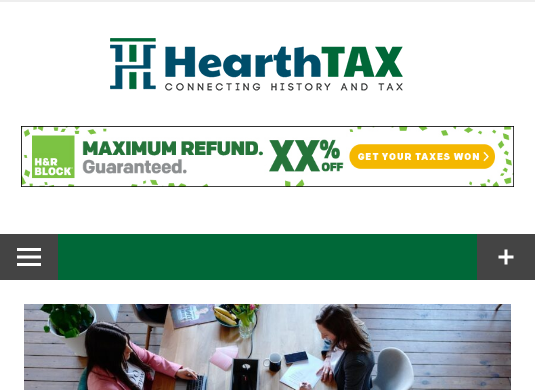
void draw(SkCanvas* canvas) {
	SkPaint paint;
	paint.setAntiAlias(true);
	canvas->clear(0xffffffff);
	paint.setColor(0xffeeeeee);
	canvas->drawRect(SkRect::MakeXYWH(0, 0, 535, 2), paint);
	canvas->drawImageRect(SkImages::DeferredFromEncodedData(SkData::MakeFromFileName("img1.png")), SkRect::MakeXYWH(110, 38, 293, 53), SkSamplingOptions());
	canvas->drawImageRect(SkImages::DeferredFromEncodedData(SkData::MakeFromFileName("img2.png")), SkRect::MakeXYWH(21, 126, 493, 61), SkSamplingOptions());
	paint.setColor(0xff444444);
	canvas->drawRect(SkRect::MakeXYWH(0, 234, 58, 46), paint);
	canvas->drawImageRect(SkImages::DeferredFromEncodedData(SkData::MakeFromFileName("img3.png")), SkRect::MakeXYWH(17, 248, 24, 18), SkSamplingOptions());
	paint.setColor(0xff006838);
	canvas->drawRect(SkRect::MakeXYWH(58, 234, 419, 46), paint);
	paint.setColor(0xff444444);
	canvas->drawRect(SkRect::MakeXYWH(477, 234, 58, 46), paint);
	canvas->drawImageRect(SkImages::DeferredFromEncodedData(SkData::MakeFromFileName("img4.png")), SkRect::MakeXYWH(498, 249, 16, 16), SkSamplingOptions());
	canvas->drawImageRect(SkImages::DeferredFromEncodedData(SkData::MakeFromFileName("img5.png")), SkRect::MakeXYWH(24, 304, 487, 86), SkSamplingOptions());
}
